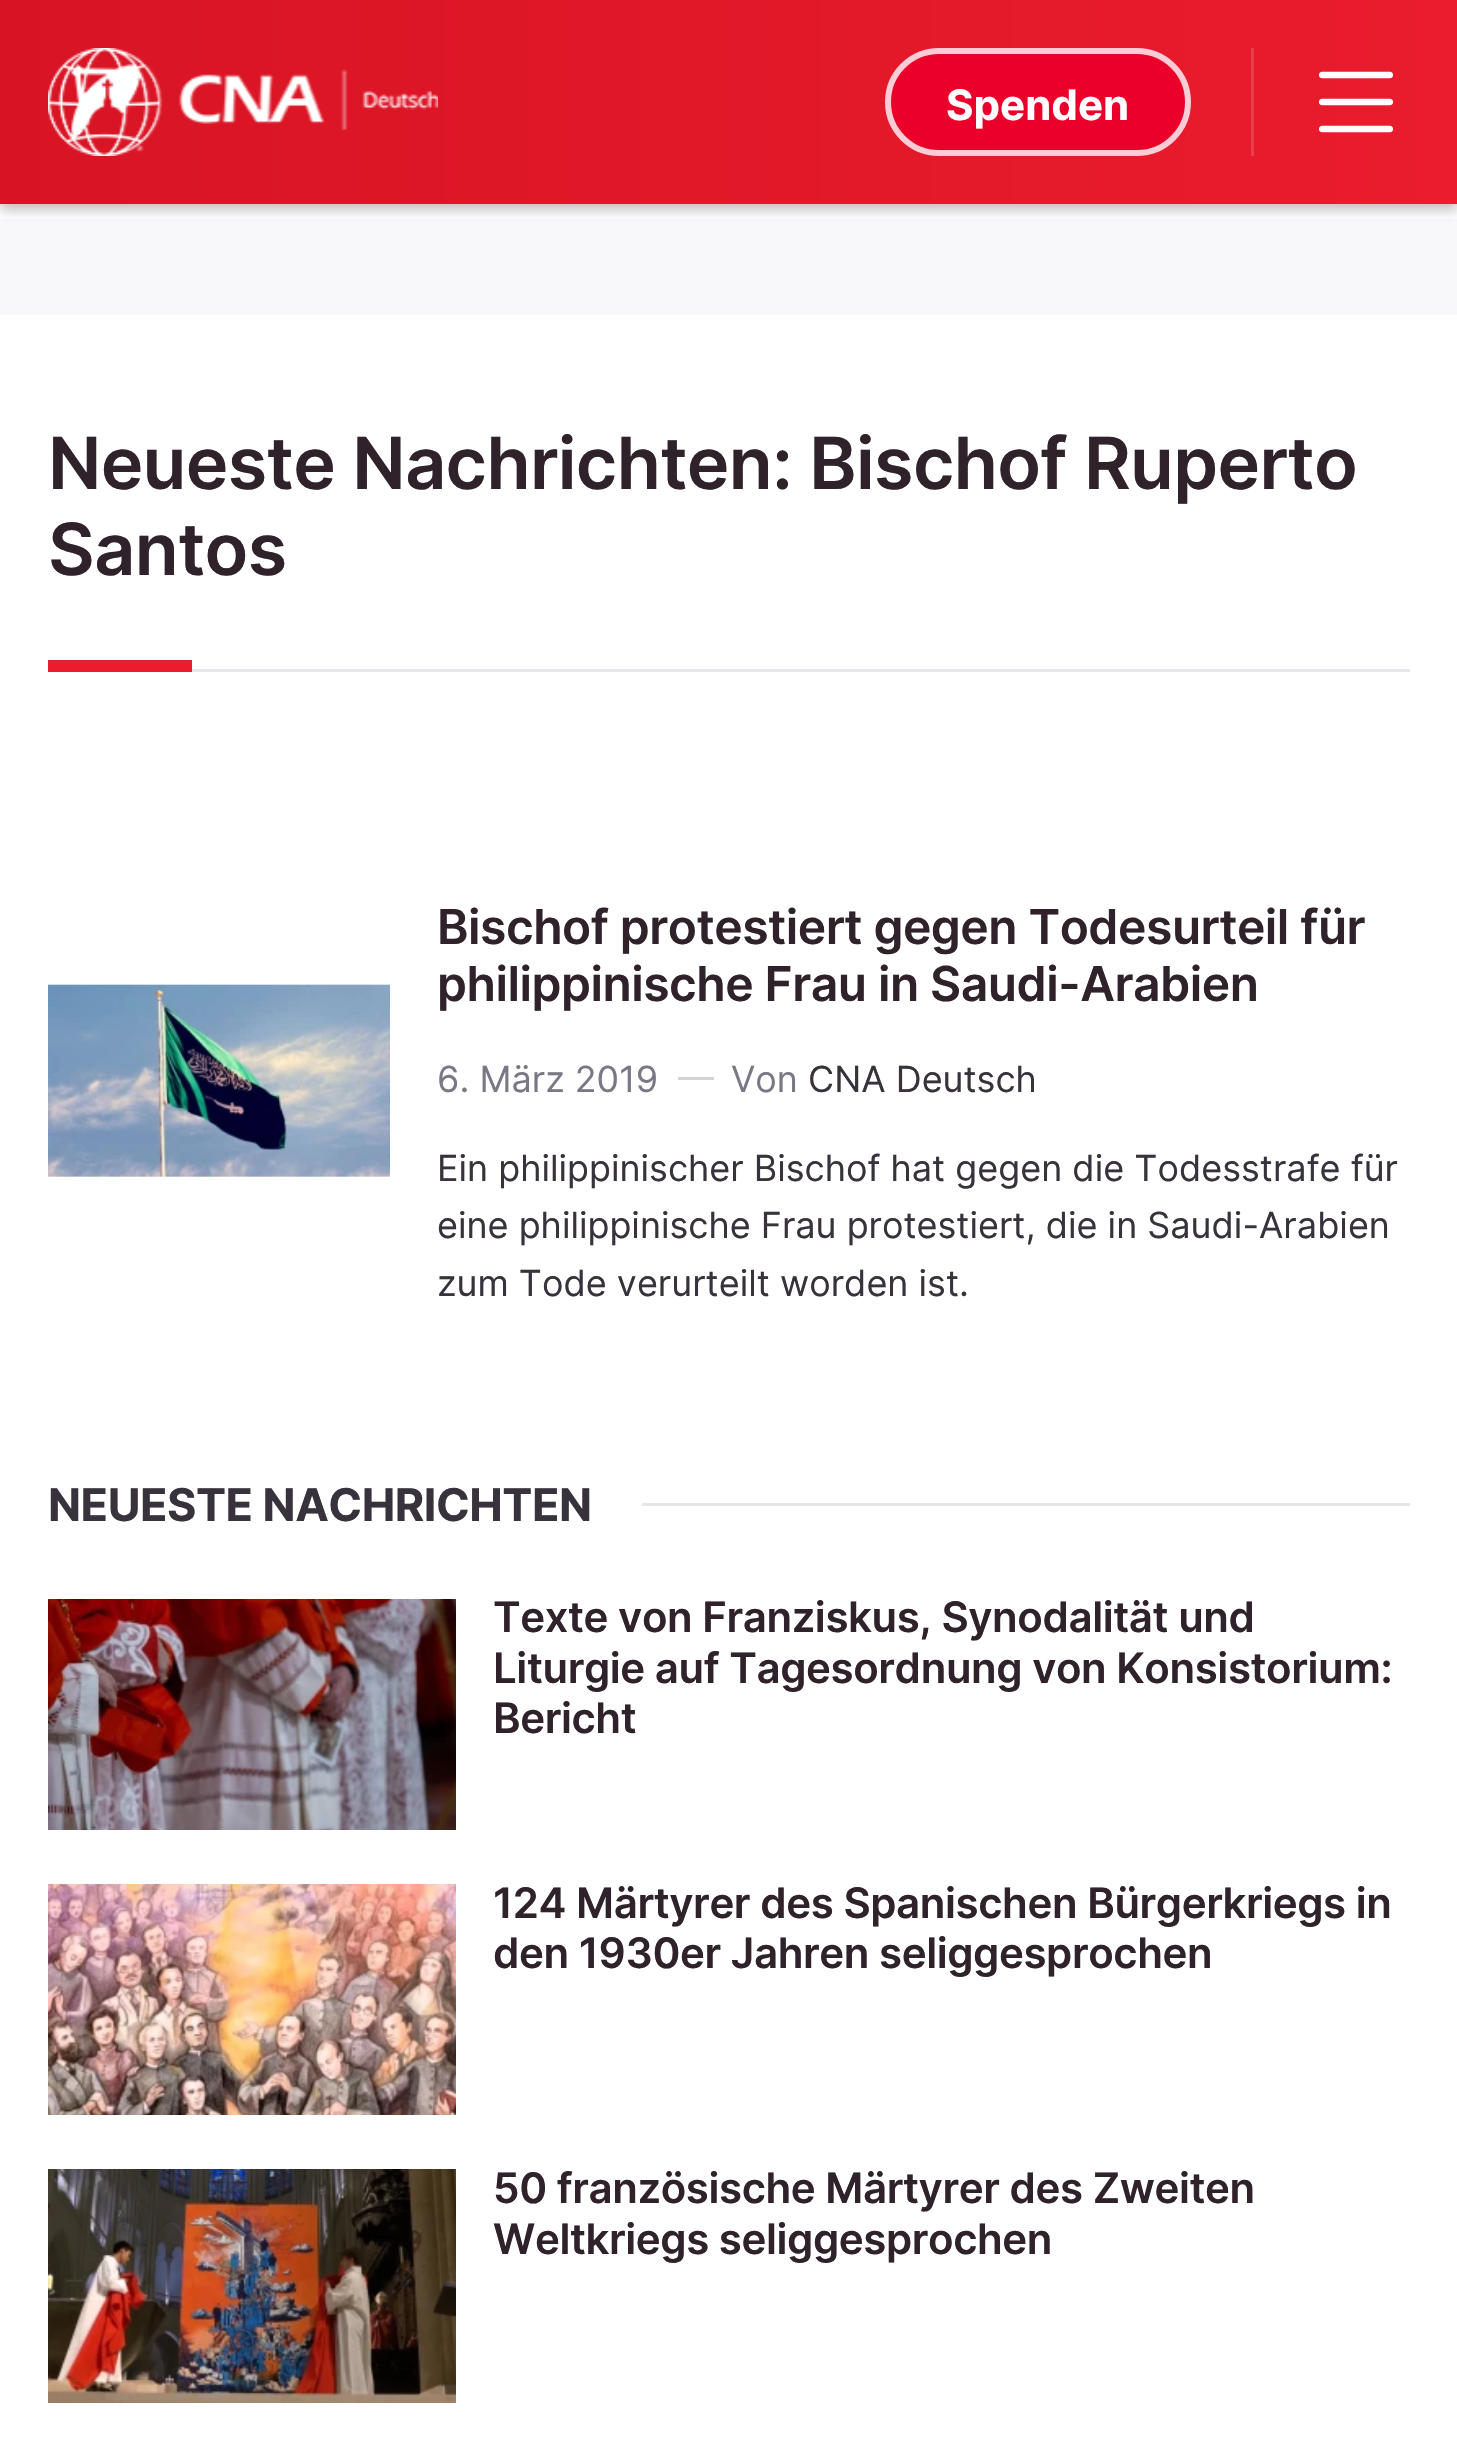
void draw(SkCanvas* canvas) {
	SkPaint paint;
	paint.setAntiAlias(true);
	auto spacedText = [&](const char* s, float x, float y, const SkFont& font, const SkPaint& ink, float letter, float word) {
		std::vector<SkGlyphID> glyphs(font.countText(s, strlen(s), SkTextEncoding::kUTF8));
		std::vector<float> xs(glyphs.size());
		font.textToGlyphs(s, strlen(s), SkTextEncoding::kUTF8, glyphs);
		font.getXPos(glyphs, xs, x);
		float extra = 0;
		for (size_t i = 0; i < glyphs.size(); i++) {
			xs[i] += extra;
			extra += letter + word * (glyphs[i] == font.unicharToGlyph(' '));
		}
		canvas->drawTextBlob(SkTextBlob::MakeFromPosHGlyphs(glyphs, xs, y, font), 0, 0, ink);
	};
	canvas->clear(0xffffffff);
	paint.setColor(0xfff8f7f9);
	canvas->drawRect(SkRect::MakeXYWH(0, 219, 1457, 96), paint);
	paint.setColor(0x4d2f222a);
	paint.setMaskFilter(SkMaskFilter::MakeBlur(kNormal_SkBlurStyle, 6));
	canvas->drawRect(SkRect::MakeXYWH(0, 6, 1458, 204), paint);
	paint.setMaskFilter(nullptr);
	{
		const SkColor colors[] = {0xffea1c2d, 0xffd81424};
		const float stops[] = {0, 1};
		const SkPoint ends[] = {{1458, 102}, {0, 102}};
		paint.setShader(SkGradientShader::MakeLinear(ends, colors, stops, 2, SkTileMode::kClamp));
		paint.setAlpha(255);
	}
	canvas->drawRect(SkRect::MakeXYWH(0, 0, 1457, 204), paint);
	canvas->drawImageRect(SkImages::DeferredFromEncodedData(SkData::MakeFromFileName("img1.png")), SkRect::MakeXYWH(48, 48, 390, 108), SkSamplingOptions());
	paint.setShader(nullptr);
	paint.setColor(0xffea002a);
	canvas->drawRoundRect(SkRect::MakeXYWH(885, 48, 306, 108), 54, 54, paint);
	paint.setStroke(true);
	paint.setStrokeWidth(6);
	paint.setColor(0xccffffff);
	canvas->drawRoundRect(SkRect::MakeXYWH(888, 51, 300, 102), 51, 51, paint);
	SkFont f1(fontMgr->matchFamilyStyle("Inter", SkFontStyle::Bold()), 42);
	f1.setSubpixel(true);
	paint.setStroke(false);
	paint.setColor(0xffffffff);
	canvas->drawString("Spenden", 946, 120, f1, paint);
	paint.setColor(0xffeb3d4c);
	canvas->drawRect(SkRect::MakeXYWH(1251, 48, 3, 108), paint);
	canvas->drawImageRect(SkImages::DeferredFromEncodedData(SkData::MakeFromFileName("img2.png")), SkRect::MakeXYWH(1319, 71, 74, 62), SkSamplingOptions());
	SkFont f2(fontMgr->matchFamilyStyle("Inter", SkFontStyle(600, SkFontStyle::kNormal_Width, SkFontStyle::kUpright_Slant)), 72);
	f2.setSubpixel(true);
	paint.setColor(0xff2f222a);
	spacedText("Neueste Nachrichten: Bischof Ruperto", 48, 489, f2, paint, -0.7, 0);
	spacedText("Santos", 48, 575, f2, paint, -0.7, 0);
	paint.setColor(0xffea1c2d);
	canvas->drawRect(SkRect::MakeXYWH(48, 660, 144, 12), paint);
	paint.setColor(0xffe7e5e9);
	canvas->drawRect(SkRect::MakeXYWH(192, 669, 1218, 3), paint);
	canvas->drawImageRect(SkImages::DeferredFromEncodedData(SkData::MakeFromFileName("img3.png")), SkRect::MakeXYWH(48, 984, 342, 193), SkSamplingOptions());
	SkFont f3(fontMgr->matchFamilyStyle("Inter", SkFontStyle(600, SkFontStyle::kNormal_Width, SkFontStyle::kUpright_Slant)), 48);
	f3.setSubpixel(true);
	paint.setColor(0xff2f222a);
	spacedText("Bischof protestiert gegen Todesurteil für", 437, 944, f3, paint, -0.5, 0);
	spacedText("philippinische Frau in Saudi-Arabien", 437, 1001, f3, paint, -0.5, 0);
	SkFont f4(fontMgr->matchFamilyStyle("Inter", SkFontStyle::Normal()), 36);
	f4.setSubpixel(true);
	paint.setColor(0xff797885);
	canvas->drawString("6. März 2019", 437, 1092, f4, paint);
	paint.setColor(0xffd5d3d7);
	canvas->drawRect(SkRect::MakeXYWH(678, 1077, 36, 3), paint);
	paint.setColor(0xff797885);
	canvas->drawString("Von", 731, 1092, f4, paint);
	paint.setColor(0xff38323c);
	canvas->drawString("CNA Deutsch", 808, 1092, f4, paint);
	canvas->drawString("Ein philippinischer Bischof hat gegen die Todesstrafe für", 437, 1181, f4, paint);
	canvas->drawString("eine philippinische Frau protestiert, die in Saudi-Arabien", 437, 1238, f4, paint);
	canvas->drawString("zum Tode verurteilt worden ist.", 437, 1296, f4, paint);
	SkFont f5(fontMgr->matchFamilyStyle("Inter", SkFontStyle::Bold()), 45);
	f5.setSubpixel(true);
	spacedText("NEUESTE NACHRICHTEN", 48, 1521, f5, paint, -0.5, 0);
	paint.setColor(0xffe7e5e9);
	canvas->drawRect(SkRect::MakeXYWH(642, 1503, 768, 3), paint);
	canvas->drawImageRect(SkImages::DeferredFromEncodedData(SkData::MakeFromFileName("img4.png")), SkRect::MakeXYWH(48, 1599, 408, 231), SkSamplingOptions());
	SkFont f6(fontMgr->matchFamilyStyle("Inter", SkFontStyle(600, SkFontStyle::kNormal_Width, SkFontStyle::kUpright_Slant)), 42);
	f6.setSubpixel(true);
	paint.setColor(0xff2f222a);
	spacedText("Texte von Franziskus, Synodalität und", 493, 1632, f6, paint, -0.4, 0);
	spacedText("Liturgie auf Tagesordnung von Konsistorium:", 493, 1683, f6, paint, -0.4, 0);
	spacedText("Bericht", 493, 1733, f6, paint, -0.4, 0);
	canvas->drawImageRect(SkImages::DeferredFromEncodedData(SkData::MakeFromFileName("img5.png")), SkRect::MakeXYWH(48, 1884, 408, 231), SkSamplingOptions());
	spacedText("124 Märtyrer des Spanischen Bürgerkriegs in", 493, 1918, f6, paint, -0.4, 0);
	spacedText("den 1930er Jahren seliggesprochen", 493, 1968, f6, paint, -0.4, 0);
	canvas->drawImageRect(SkImages::DeferredFromEncodedData(SkData::MakeFromFileName("img6.png")), SkRect::MakeXYWH(48, 2169, 408, 234), SkSamplingOptions());
	spacedText("50 französische Märtyrer des Zweiten", 493, 2203, f6, paint, -0.4, 0);
	spacedText("Weltkriegs seliggesprochen", 493, 2254, f6, paint, -0.4, 0);
}
